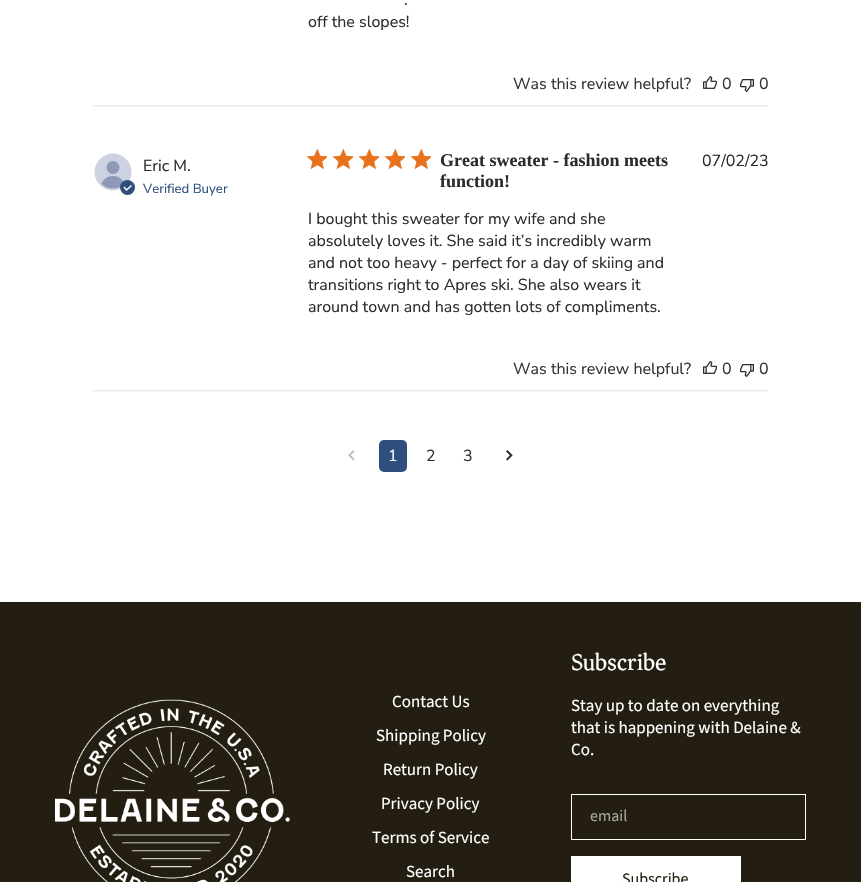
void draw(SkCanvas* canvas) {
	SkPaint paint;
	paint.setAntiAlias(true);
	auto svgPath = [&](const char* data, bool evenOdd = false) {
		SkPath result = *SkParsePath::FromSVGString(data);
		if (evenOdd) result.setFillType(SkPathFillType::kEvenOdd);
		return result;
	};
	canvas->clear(0xffffffff);
	SkFont f1(fontMgr->matchFamilyStyle("Nunito Sans", SkFontStyle(200, SkFontStyle::kNormal_Width, SkFontStyle::kUpright_Slant)), 16);
	f1.setSubpixel(true);
	paint.setColor(0xff2c2c2c);
	canvas->drawString(".", 404, 5, f1, paint);
	canvas->drawString("off the slopes!", 308, 27, f1, paint);
	paint.setColor(0xff373330);
	canvas->drawString("Was this review helpful?", 513, 89, f1, paint);
	canvas->drawImageRect(SkImages::DeferredFromEncodedData(SkData::MakeFromFileName("img1.png")), SkRect::MakeXYWH(703, 76, 14, 13), SkSamplingOptions());
	canvas->drawString("0", 722, 89, f1, paint);
	canvas->drawImageRect(SkImages::DeferredFromEncodedData(SkData::MakeFromFileName("img2.png")), SkRect::MakeXYWH(740, 79, 14, 13), SkSamplingOptions());
	canvas->drawString("0", 759, 89, f1, paint);
	canvas->drawImageRect(SkImages::DeferredFromEncodedData(SkData::MakeFromFileName("img3.png")), SkRect::MakeXYWH(93, 105, 675, 2), SkSamplingOptions());
	paint.setColor(0xffccd2e1);
	canvas->drawCircle(113, 172, 18.5, paint);
	paint.setColor(0xff8d99b6);
	canvas->drawCircle(113, 167.5, 6.5, paint);
	canvas->drawPath(svgPath("M113 176C118.5 176 123 179.5 124.5 184C118.5 190 107.5 190 101.5 184C103 179.5 107.5 176 113 176Z"), paint);
	paint.setColor(0xff2e4f7c);
	canvas->drawCircle(127.5, 187.5, 7.5, paint);
	paint.setStroke(true);
	paint.setStrokeWidth(1.5);
	paint.setColor(0xffffffff);
	canvas->drawPath(svgPath("M124 187L126.5 190L131.5 185.5"), paint);
	paint.setStroke(false);
	paint.setColor(0xff2c2c2c);
	canvas->drawString("Eric M.", 143, 171, f1, paint);
	SkFont f2(fontMgr->matchFamilyStyle("Nunito Sans", SkFontStyle(200, SkFontStyle::kNormal_Width, SkFontStyle::kUpright_Slant)), 13.25);
	f2.setSubpixel(true);
	paint.setColor(0xff2e4f7c);
	canvas->drawString("Verified Buyer", 143, 193, f2, paint);
	canvas->drawImageRect(SkImages::DeferredFromEncodedData(SkData::MakeFromFileName("img4.png")), SkRect::MakeXYWH(306, 148, 21, 22), SkSamplingOptions());
	canvas->drawImageRect(SkImages::DeferredFromEncodedData(SkData::MakeFromFileName("img4.png")), SkRect::MakeXYWH(332, 148, 21, 22), SkSamplingOptions());
	canvas->drawImageRect(SkImages::DeferredFromEncodedData(SkData::MakeFromFileName("img4.png")), SkRect::MakeXYWH(358, 148, 21, 22), SkSamplingOptions());
	canvas->drawImageRect(SkImages::DeferredFromEncodedData(SkData::MakeFromFileName("img4.png")), SkRect::MakeXYWH(384, 148, 21, 22), SkSamplingOptions());
	canvas->drawImageRect(SkImages::DeferredFromEncodedData(SkData::MakeFromFileName("img4.png")), SkRect::MakeXYWH(410, 148, 21, 22), SkSamplingOptions());
	SkFont f3(fontMgr->matchFamilyStyle("Liberation Serif", SkFontStyle::Bold()), 18);
	f3.setSubpixel(true);
	paint.setColor(0xff2c2c2c);
	canvas->drawString("Great sweater - fashion meets", 440, 166, f3, paint);
	canvas->drawString("function!", 440, 187, f3, paint);
	canvas->drawString("I bought this sweater for my wife and she", 308, 224, f1, paint);
	canvas->drawString("absolutely loves it. She said it’s incredibly warm", 308, 246, f1, paint);
	canvas->drawString("and not too heavy - perfect for a day of skiing and", 308, 268, f1, paint);
	canvas->drawString("transitions right to Apres ski. She also wears it", 308, 290, f1, paint);
	canvas->drawString("around town and has gotten lots of compliments.", 308, 312, f1, paint);
	canvas->drawString("07/02/23", 702, 166, f1, paint);
	paint.setColor(0xff373330);
	canvas->drawString("Was this review helpful?", 513, 374, f1, paint);
	canvas->drawImageRect(SkImages::DeferredFromEncodedData(SkData::MakeFromFileName("img1.png")), SkRect::MakeXYWH(703, 361, 14, 13), SkSamplingOptions());
	canvas->drawString("0", 722, 374, f1, paint);
	canvas->drawImageRect(SkImages::DeferredFromEncodedData(SkData::MakeFromFileName("img2.png")), SkRect::MakeXYWH(740, 364, 14, 13), SkSamplingOptions());
	canvas->drawString("0", 759, 374, f1, paint);
	canvas->drawImageRect(SkImages::DeferredFromEncodedData(SkData::MakeFromFileName("img3.png")), SkRect::MakeXYWH(93, 390, 675, 2), SkSamplingOptions());
	canvas->drawImageRect(SkImages::DeferredFromEncodedData(SkData::MakeFromFileName("img5.png")), SkRect::MakeXYWH(348, 450, 7, 11), SkSamplingOptions());
	paint.setColor(0xff2e4f7c);
	canvas->drawRoundRect(SkRect::MakeXYWH(379, 440, 28, 32), 5, 5, paint);
	paint.setColor(0xffffffff);
	canvas->drawString("1", 388, 461, f1, paint);
	paint.setColor(0xff2c2c2c);
	canvas->drawString("2", 426, 461, f1, paint);
	canvas->drawString("3", 463, 461, f1, paint);
	canvas->drawImageRect(SkImages::DeferredFromEncodedData(SkData::MakeFromFileName("img6.png")), SkRect::MakeXYWH(506, 450, 7, 11), SkSamplingOptions());
	paint.setColor(0xff231e11);
	canvas->drawRect(SkRect::MakeXYWH(0, 602, 861, 280), paint);
	canvas->drawImageRect(SkImages::DeferredFromEncodedData(SkData::MakeFromFileName("img7.png")), SkRect::MakeXYWH(55, 699, 235, 183), SkSamplingOptions());
	SkFont f4(fontMgr->matchFamilyStyle("Source Sans Pro", SkFontStyle::Normal()), 17);
	f4.setSubpixel(true);
	paint.setColor(0xffffffff);
	canvas->drawString("Contact Us", 392, 707, f4, paint);
	canvas->drawString("Shipping Policy", 376, 741, f4, paint);
	canvas->drawString("Return Policy", 383, 775, f4, paint);
	canvas->drawString("Privacy Policy", 381, 809, f4, paint);
	canvas->drawString("Terms of Service", 372, 843, f4, paint);
	canvas->drawString("Search", 406, 877, f4, paint);
	SkFont f5(fontMgr->matchFamilyStyle("Asar", SkFontStyle::Normal()), 24);
	f5.setSubpixel(true);
	canvas->drawString("Subscribe", 571, 670, f5, paint);
	canvas->drawString("Stay up to date on everything", 571, 711, f4, paint);
	canvas->drawString("that is happening with Delaine &", 571, 733, f4, paint);
	canvas->drawString("Co.", 571, 755, f4, paint);
	paint.setStroke(true);
	paint.setStrokeWidth(1);
	canvas->drawRect(SkRect::MakeXYWH(571.5, 794.5, 234, 45), paint);
	SkFont f6(fontMgr->matchFamilyStyle("Source Sans Pro", SkFontStyle::Normal()), 16);
	f6.setSubpixel(true);
	paint.setStroke(false);
	paint.setColor(0xffa7a5a0);
	canvas->drawString("email", 590, 821, f6, paint);
	paint.setColor(0xffffffff);
	canvas->drawRect(SkRect::MakeXYWH(571, 856, 170, 26), paint);
	paint.setColor(0xff231e11);
	canvas->drawString("Subscribe", 622, 884, f6, paint);
}
